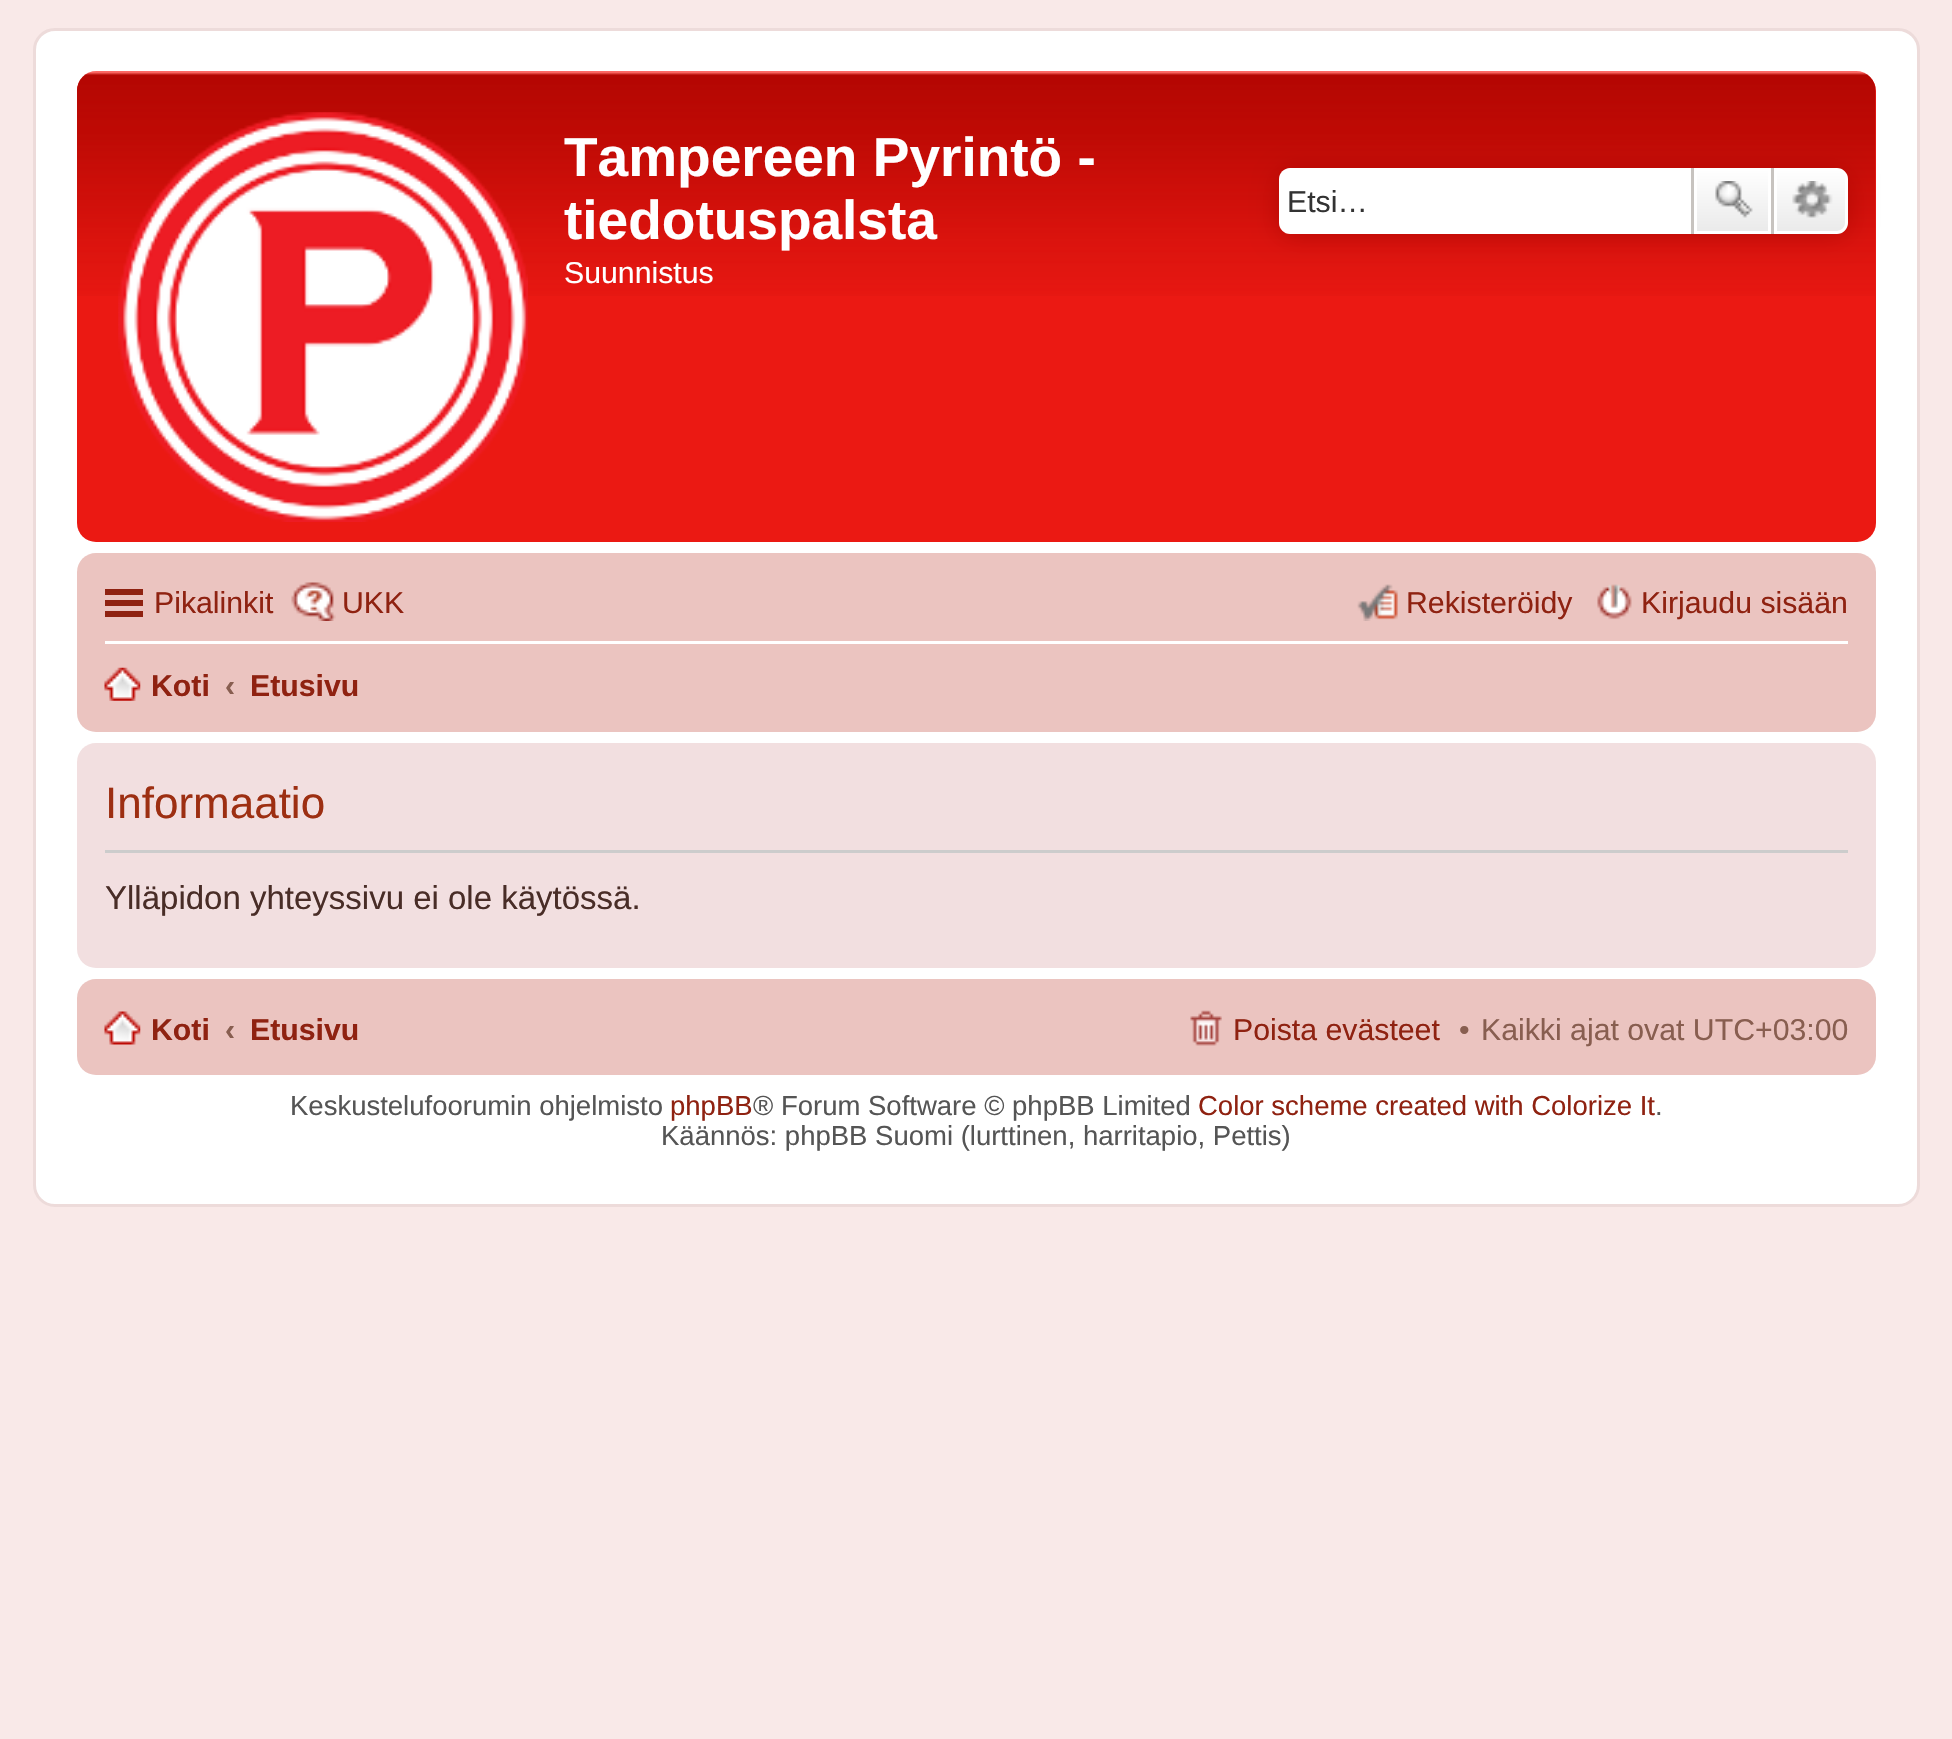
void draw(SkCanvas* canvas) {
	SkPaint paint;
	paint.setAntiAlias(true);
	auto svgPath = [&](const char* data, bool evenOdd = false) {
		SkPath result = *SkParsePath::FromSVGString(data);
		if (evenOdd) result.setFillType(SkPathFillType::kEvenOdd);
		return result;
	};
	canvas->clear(0xfff9e9e8);
	paint.setColor(0xffffffff);
	canvas->drawRoundRect(SkRect::MakeXYWH(34.5, 29.5, 1884, 1176), 20.5, 20.5, paint);
	paint.setStroke(true);
	paint.setStrokeWidth(3);
	paint.setColor(0xffeddbda);
	canvas->drawRoundRect(SkRect::MakeXYWH(34.5, 29.5, 1884, 1176), 20.5, 20.5, paint);
	paint.setStroke(false);
	paint.setColor(0xffeb1913);
	canvas->drawRoundRect(SkRect::MakeXYWH(77, 72, 1799, 470), 19, 19, paint);
	canvas->drawImageRect(SkImages::DeferredFromEncodedData(SkData::MakeFromFileName("img1.png")), SkRect::MakeXYWH(77, 71, 1799, 225), SkSamplingOptions());
	canvas->drawImageRect(SkImages::DeferredFromEncodedData(SkData::MakeFromFileName("img2.png")), SkRect::MakeXYWH(118, 112, 410, 410), SkSamplingOptions());
	SkFont f1(fontMgr->matchFamilyStyle("Liberation Sans", SkFontStyle::Bold()), 55);
	f1.setSubpixel(true);
	paint.setColor(0xffffffff);
	canvas->drawString("Tampereen Pyrintö -", 564, 176, f1, paint);
	canvas->drawString("tiedotuspalsta", 564, 239, f1, paint);
	SkFont f2(fontMgr->matchFamilyStyle("Liberation Sans", SkFontStyle::Normal()), 30.25);
	f2.setSubpixel(true);
	canvas->drawString("Suunnistus", 564, 283, f2, paint);
	paint.setColor(0xffb30702);
	paint.setMaskFilter(SkMaskFilter::MakeBlur(kNormal_SkBlurStyle, 14));
	canvas->drawRoundRect(SkRect::MakeXYWH(1279, 168, 569, 66), 11, 11, paint);
	paint.setMaskFilter(nullptr);
	paint.setColor(0xffffffff);
	canvas->drawPath(svgPath("M1290 168H1691V234H1290C1284 234 1279 229 1279 223V179C1279 173 1284 168 1290 168Z"), paint);
	paint.setColor(0xff333333);
	canvas->drawString("Etsi…", 1287, 212, f2, paint);
	{
		const SkColor colors[] = {0xffffffff, 0xffe9e9e9};
		const float stops[] = {0, 1};
		const SkPoint ends[] = {{1733, 168}, {1733, 234}};
		paint.setShader(SkGradientShader::MakeLinear(ends, colors, stops, 2, SkTileMode::kClamp));
		paint.setAlpha(255);
	}
	canvas->drawRect(SkRect::MakeXYWH(1697, 171, 71, 60), paint);
	paint.setStroke(true);
	paint.setShader(nullptr);
	paint.setColor(0xffffffff);
	canvas->drawRect(SkRect::MakeXYWH(1695.5, 169.5, 74, 63), paint);
	paint.setStroke(false);
	paint.setColor(0xffc7c3bf);
	canvas->drawRect(SkRect::MakeXYWH(1771, 168, 3, 66), paint);
	canvas->drawRect(SkRect::MakeXYWH(1691, 168, 3, 66), paint);
	canvas->drawImageRect(SkImages::DeferredFromEncodedData(SkData::MakeFromFileName("img3.png")), SkRect::MakeXYWH(1715, 181, 38, 37), SkSamplingOptions());
	{
		const SkColor colors[] = {0xffffffff, 0xffe9e9e9};
		const float stops[] = {0, 1};
		const SkPoint ends[] = {{1811, 168}, {1811, 234}};
		paint.setShader(SkGradientShader::MakeLinear(ends, colors, stops, 2, SkTileMode::kClamp));
		paint.setAlpha(255);
	}
	canvas->drawPath(svgPath("M1775.5 169.5H1837C1842 169.5 1846.5 174 1846.5 179V223C1846.5 228 1842 232.5 1837 232.5H1775.5Z"), paint);
	paint.setStroke(true);
	paint.setShader(nullptr);
	paint.setColor(0xffffffff);
	canvas->drawPath(svgPath("M1775.5 169.5H1837C1842 169.5 1846.5 174 1846.5 179V223C1846.5 228 1842 232.5 1837 232.5H1775.5Z"), paint);
	canvas->drawImageRect(SkImages::DeferredFromEncodedData(SkData::MakeFromFileName("img4.png")), SkRect::MakeXYWH(1792, 181, 41, 37), SkSamplingOptions());
	paint.setStroke(false);
	paint.setColor(0xffebc4c0);
	canvas->drawRoundRect(SkRect::MakeXYWH(77, 553, 1799, 179), 19, 19, paint);
	paint.setColor(0xff8f2211);
	canvas->drawRect(SkRect::MakeXYWH(105, 589, 38, 6), paint);
	canvas->drawRect(SkRect::MakeXYWH(105, 600, 38, 6), paint);
	canvas->drawRect(SkRect::MakeXYWH(105, 611, 38, 6), paint);
	canvas->drawString("Pikalinkit", 154, 613, f2, paint);
	canvas->drawImageRect(SkImages::DeferredFromEncodedData(SkData::MakeFromFileName("img5.png")), SkRect::MakeXYWH(291, 582, 45, 39), SkSamplingOptions());
	canvas->drawString("UKK", 342, 613, f2, paint);
	canvas->drawImageRect(SkImages::DeferredFromEncodedData(SkData::MakeFromFileName("img6.png")), SkRect::MakeXYWH(1357, 584, 41, 37), SkSamplingOptions());
	canvas->drawString("Rekisteröidy", 1406, 613, f2, paint);
	canvas->drawImageRect(SkImages::DeferredFromEncodedData(SkData::MakeFromFileName("img7.png")), SkRect::MakeXYWH(1597, 584, 35, 36), SkSamplingOptions());
	canvas->drawString("Kirjaudu sisään", 1641, 613, f2, paint);
	paint.setColor(0xffffffff);
	canvas->drawRect(SkRect::MakeXYWH(105, 641, 1743, 3), paint);
	canvas->drawImageRect(SkImages::DeferredFromEncodedData(SkData::MakeFromFileName("img8.png")), SkRect::MakeXYWH(104, 667, 37, 34), SkSamplingOptions());
	SkFont f3(fontMgr->matchFamilyStyle("Liberation Sans", SkFontStyle::Bold()), 30.25);
	f3.setSubpixel(true);
	paint.setColor(0xff8f2211);
	canvas->drawString("Koti", 151, 696, f3, paint);
	paint.setColor(0xff885e50);
	canvas->drawString("‹", 225, 696, f3, paint);
	paint.setColor(0xff8f2211);
	canvas->drawString("Etusivu", 250, 696, f3, paint);
	paint.setColor(0xfff2dfe0);
	canvas->drawRoundRect(SkRect::MakeXYWH(77, 743, 1799, 225), 19, 19, paint);
	paint.setColor(0xffcccccc);
	canvas->drawRect(SkRect::MakeXYWH(105, 850, 1743, 3), paint);
	SkFont f4(fontMgr->matchFamilyStyle("Liberation Sans", SkFontStyle::Normal()), 44);
	f4.setSubpixel(true);
	paint.setColor(0xff9d2f12);
	canvas->drawString("Informaatio", 105, 818, f4, paint);
	SkFont f5(fontMgr->matchFamilyStyle("Liberation Sans", SkFontStyle::Normal()), 33);
	f5.setSubpixel(true);
	paint.setColor(0xff492d27);
	canvas->drawString("Ylläpidon yhteyssivu ei ole käytössä.", 105, 909, f5, paint);
	paint.setColor(0xffebc4c0);
	canvas->drawRoundRect(SkRect::MakeXYWH(77, 979, 1799, 96), 19, 19, paint);
	canvas->drawImageRect(SkImages::DeferredFromEncodedData(SkData::MakeFromFileName("img9.png")), SkRect::MakeXYWH(104, 1011, 37, 34), SkSamplingOptions());
	paint.setColor(0xff8f2211);
	canvas->drawString("Koti", 151, 1040, f3, paint);
	paint.setColor(0xff885e50);
	canvas->drawString("‹", 225, 1040, f3, paint);
	paint.setColor(0xff8f2211);
	canvas->drawString("Etusivu", 250, 1040, f3, paint);
	canvas->drawImageRect(SkImages::DeferredFromEncodedData(SkData::MakeFromFileName("img10.png")), SkRect::MakeXYWH(1190, 1010, 32, 36), SkSamplingOptions());
	canvas->drawString("Poista evästeet", 1233, 1040, f2, paint);
	paint.setColor(0xff885e50);
	canvas->drawString("•", 1459, 1040, f2, paint);
	canvas->drawString("Kaikki ajat ovat UTC+03:00", 1481, 1040, f2, paint);
	SkFont f6(fontMgr->matchFamilyStyle("Liberation Sans", SkFontStyle::Normal()), 27.5);
	f6.setSubpixel(true);
	paint.setColor(0xff555555);
	canvas->drawString("Keskustelufoorumin ohjelmisto", 290, 1115, f6, paint);
	paint.setColor(0xff8f2211);
	canvas->drawString("phpBB", 670, 1115, f6, paint);
	paint.setColor(0xff555555);
	canvas->drawString("® Forum Software © phpBB Limited", 753, 1115, f6, paint);
	paint.setColor(0xff8f2211);
	canvas->drawString("Color scheme created with Colorize It", 1198, 1115, f6, paint);
	paint.setColor(0xff555555);
	canvas->drawString(".", 1655, 1115, f6, paint);
	canvas->drawString("Käännös: phpBB Suomi (lurttinen, harritapio, Pettis)", 661, 1145, f6, paint);
}
